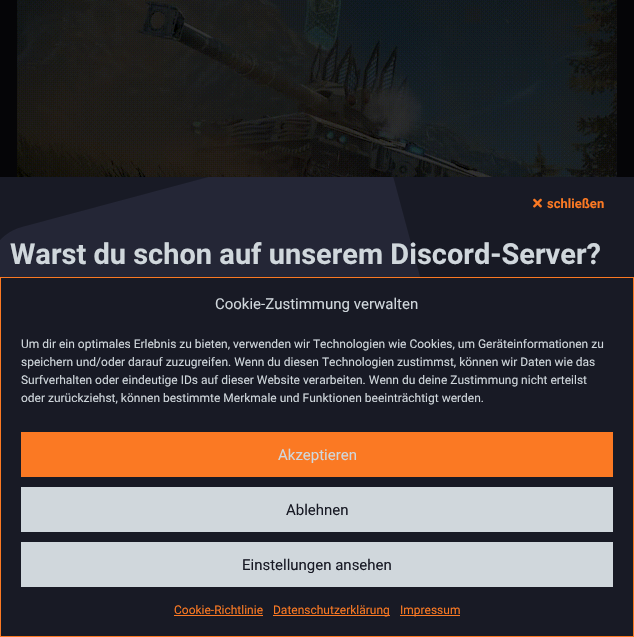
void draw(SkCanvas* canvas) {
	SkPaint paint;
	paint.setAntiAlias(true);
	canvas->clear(0xff050507);
	canvas->drawImageRect(SkImages::DeferredFromEncodedData(SkData::MakeFromFileName("img1.png")), SkRect::MakeXYWH(17, 0, 600, 177), SkSamplingOptions());
	paint.setColor(0xff181a25);
	canvas->drawRect(SkRect::MakeXYWH(0, 177, 634, 100), paint);
	canvas->drawImageRect(SkImages::DeferredFromEncodedData(SkData::MakeFromFileName("img2.png")), SkRect::MakeXYWH(0, 177, 420, 100), SkSamplingOptions());
	canvas->drawImageRect(SkImages::DeferredFromEncodedData(SkData::MakeFromFileName("img3.png")), SkRect::MakeXYWH(533, 198, 9, 10), SkSamplingOptions());
	SkFont f1(fontMgr->matchFamilyStyle("Roboto", SkFontStyle::Bold()), 13);
	f1.setSubpixel(true);
	paint.setColor(0xfffb7923);
	canvas->drawString("schließen", 547, 208, f1, paint);
	SkFont f2(fontMgr->matchFamilyStyle("Roboto", SkFontStyle::Bold()), 29);
	f2.setSubpixel(true);
	paint.setColor(0xffd0d7dc);
	canvas->drawString("Warst du schon auf unserem Discord-Server?", 10, 264, f2, paint);
	paint.setColor(0xff181a25);
	canvas->drawRect(SkRect::MakeXYWH(0.5, 277.5, 633, 359), paint);
	paint.setStroke(true);
	paint.setStrokeWidth(1);
	paint.setColor(0xfffb7923);
	canvas->drawRect(SkRect::MakeXYWH(0.5, 277.5, 633, 359), paint);
	SkFont f3(fontMgr->matchFamilyStyle("Roboto", SkFontStyle::Normal()), 15);
	f3.setSubpixel(true);
	paint.setStroke(false);
	paint.setColor(0xffd0d7dc);
	canvas->drawString("Cookie-Zustimmung verwalten", 215, 309, f3, paint);
	SkFont f4(fontMgr->matchFamilyStyle("Roboto", SkFontStyle::Normal()), 12);
	f4.setSubpixel(true);
	canvas->drawString("Um dir ein optimales Erlebnis zu bieten, verwenden wir Technologien wie Cookies, um Geräteinformationen zu", 21, 348, f4, paint);
	canvas->drawString("speichern und/oder darauf zuzugreifen. Wenn du diesen Technologien zustimmst, können wir Daten wie das", 21, 366, f4, paint);
	canvas->drawString("Surfverhalten oder eindeutige IDs auf dieser Website verarbeiten. Wenn du deine Zustimmung nicht erteilst", 21, 384, f4, paint);
	canvas->drawString("oder zurückziehst, können bestimmte Merkmale und Funktionen beeinträchtigt werden.", 21, 402, f4, paint);
	paint.setColor(0xfffb7923);
	canvas->drawRect(SkRect::MakeXYWH(21, 432, 592, 45), paint);
	paint.setColor(0xffd0d7dc);
	canvas->drawString("Akzeptieren", 278, 460, f3, paint);
	canvas->drawRect(SkRect::MakeXYWH(21, 487, 592, 45), paint);
	paint.setColor(0xff181a25);
	canvas->drawString("Ablehnen", 286, 515, f3, paint);
	paint.setColor(0xffd0d7dc);
	canvas->drawRect(SkRect::MakeXYWH(21, 542, 592, 45), paint);
	paint.setColor(0xff181a25);
	canvas->drawString("Einstellungen ansehen", 242, 570, f3, paint);
	paint.setColor(0xfffb7923);
	canvas->drawString("Cookie-Richtlinie", 174, 614, f4, paint);
	canvas->drawRect(SkRect::MakeXYWH(174, 615, 89, 1), paint);
	canvas->drawRect(SkRect::MakeXYWH(273, 615, 117, 1), paint);
	canvas->drawString("Datenschutzerklärung", 273, 614, f4, paint);
	canvas->drawRect(SkRect::MakeXYWH(400, 615, 60, 1), paint);
	canvas->drawString("Impressum", 400, 614, f4, paint);
}
